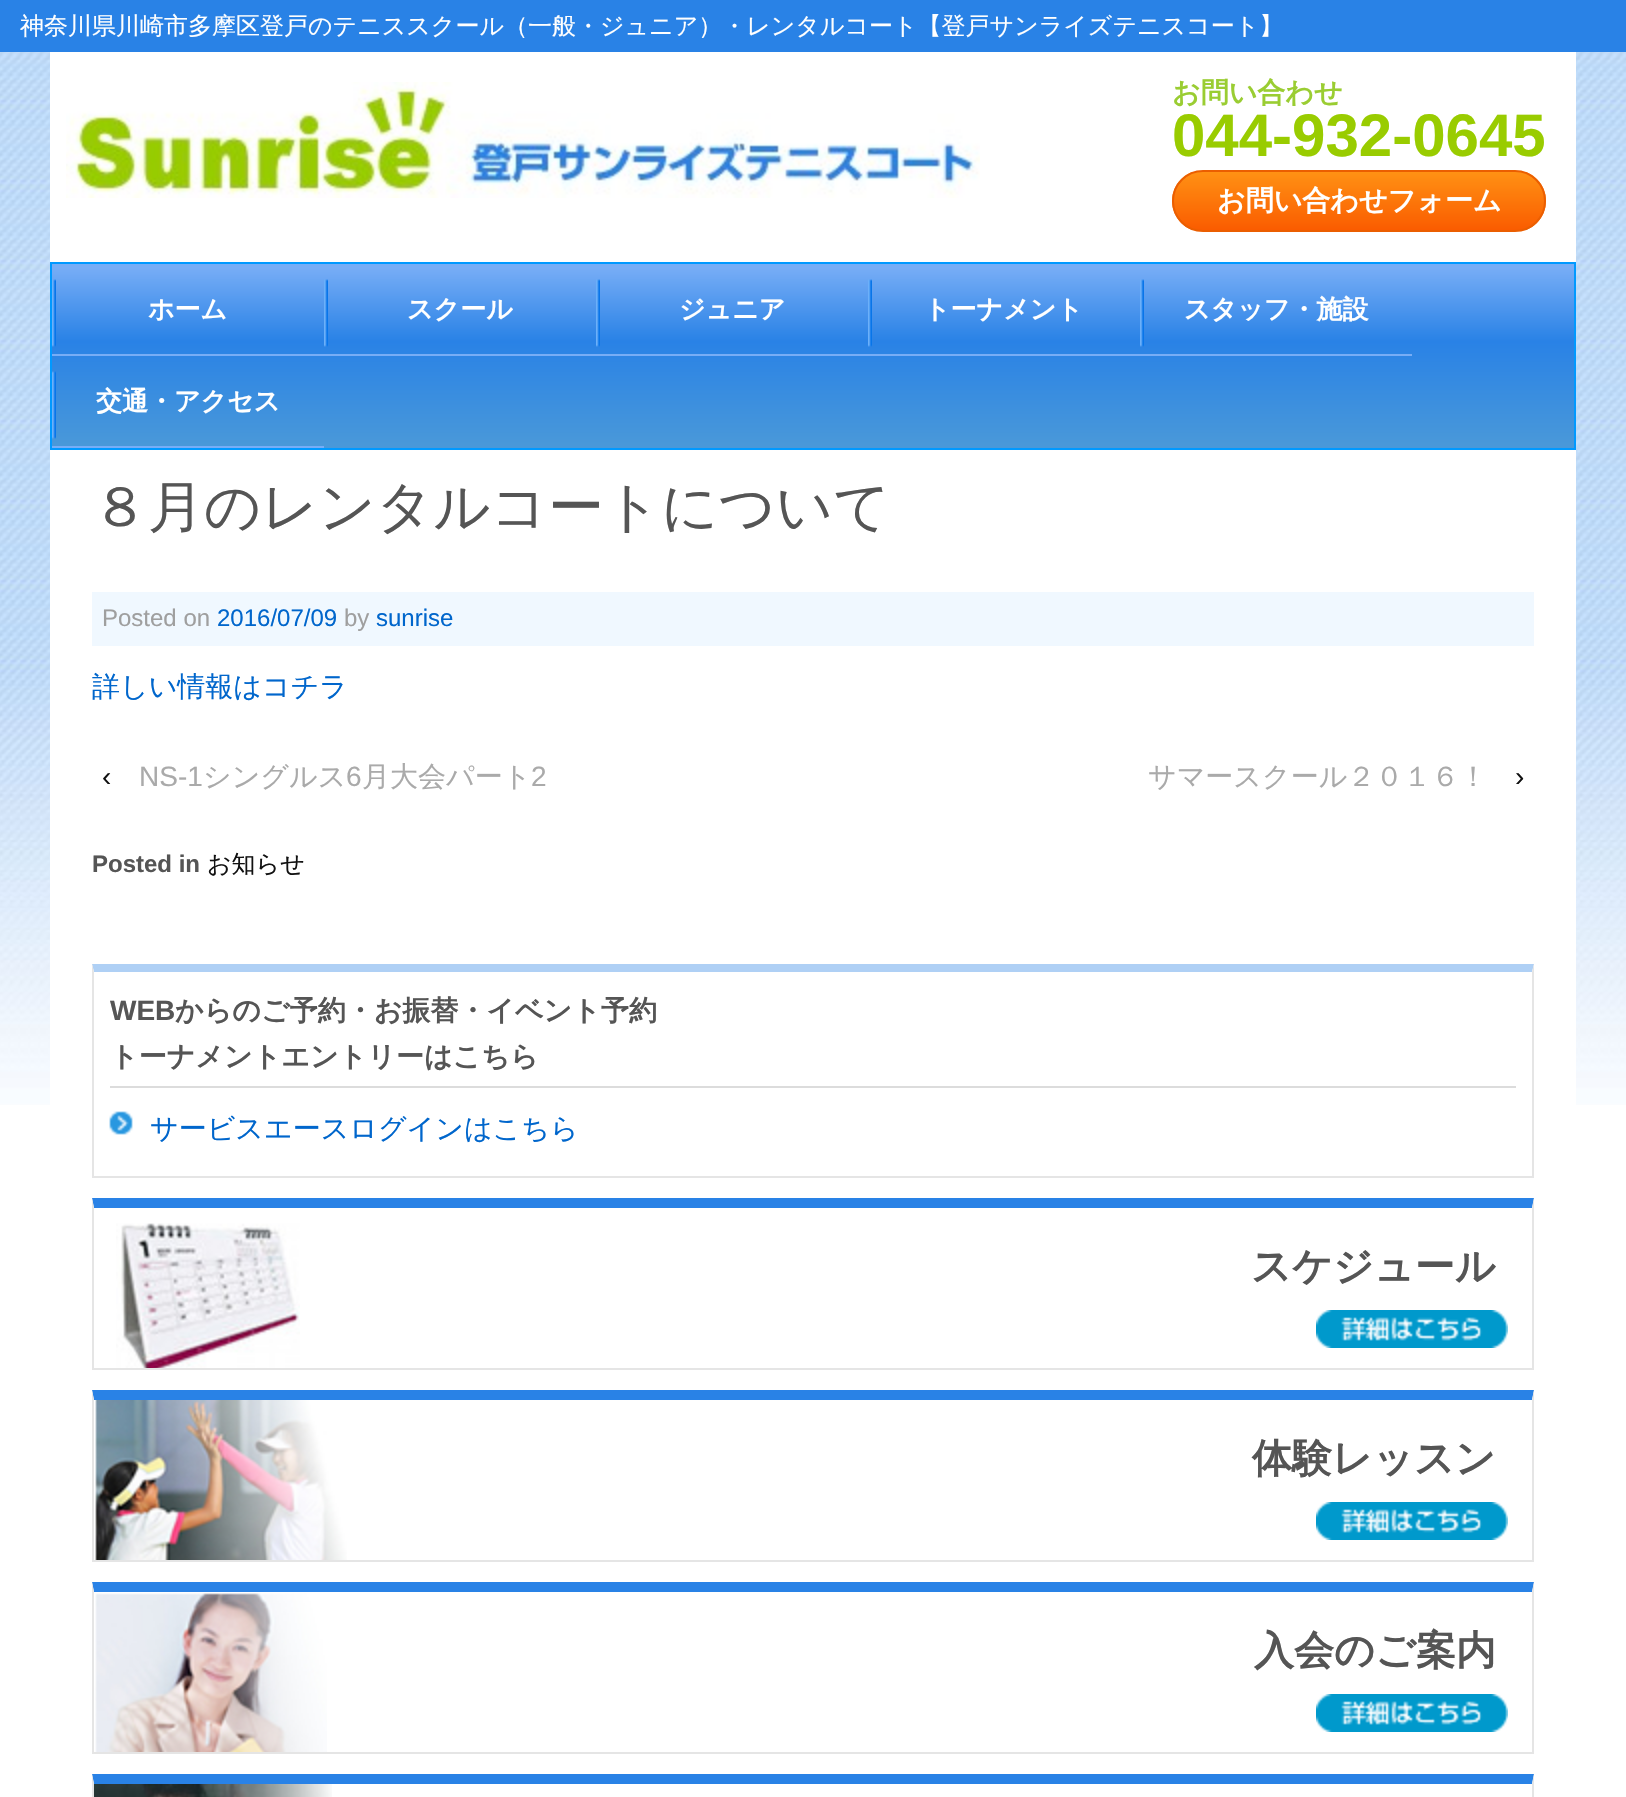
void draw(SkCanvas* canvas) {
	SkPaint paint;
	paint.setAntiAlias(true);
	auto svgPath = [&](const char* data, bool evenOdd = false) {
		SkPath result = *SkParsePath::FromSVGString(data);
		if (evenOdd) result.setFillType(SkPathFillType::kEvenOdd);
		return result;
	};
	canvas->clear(0xffffffff);
	canvas->drawImageRect(SkImages::DeferredFromEncodedData(SkData::MakeFromFileName("img1.png")), SkRect::MakeXYWH(0, 52, 1626, 1053), SkSamplingOptions());
	paint.setColor(0xff2982e6);
	canvas->drawRect(SkRect::MakeXYWH(0, 0, 1626, 52), paint);
	SkFont f1(fontMgr->matchFamilyStyle("WenQuanYi Zen Hei", SkFontStyle(500, SkFontStyle::kNormal_Width, SkFontStyle::kUpright_Slant)), 24);
	f1.setSubpixel(true);
	paint.setColor(0xffffffff);
	canvas->drawString("神奈川県川崎市多摩区登戸のテニススクール（一般・ジュニア）・レンタルコート【登戸サンライズテニスコート】", 20, 34, f1, paint);
	canvas->drawRect(SkRect::MakeXYWH(50, 52, 1526, 210), paint);
	canvas->drawImageRect(SkImages::DeferredFromEncodedData(SkData::MakeFromFileName("img2.png")), SkRect::MakeXYWH(66, 82, 914, 116), SkSamplingOptions());
	SkFont f2(fontMgr->matchFamilyStyle("WenQuanYi Zen Hei", SkFontStyle::Bold()), 28);
	f2.setSubpixel(true);
	paint.setColor(0xff9acd32);
	canvas->drawString("お問い合わせ", 1172, 102, f2, paint);
	SkFont f3(fontMgr->matchFamilyStyle("Liberation Sans", SkFontStyle::Bold()), 60);
	f3.setSubpixel(true);
	paint.setColor(0xff99cc00);
	canvas->drawString("044-932-0645", 1172, 156, f3, paint);
	canvas->save();
	canvas->clipPath(svgPath("M1203 170H1515C1532 170 1546 184 1546 201C1546 218 1532 232 1515 232H1203C1186 232 1172 218 1172 201C1172 184 1186 170 1203 170Z"), true);
	{
		const SkColor colors[] = {0xffff9114, 0xfffa5c00};
		const float stops[] = {0, 1};
		const SkPoint ends[] = {{1174, 172}, {1174, 230}};
		paint.setShader(SkGradientShader::MakeLinear(ends, colors, stops, 2, SkTileMode::kClamp));
		paint.setAlpha(255);
	}
	canvas->drawRect(SkRect::MakeXYWH(1172, 172, 374, 58), paint);
	canvas->restore();
	paint.setStroke(true);
	paint.setStrokeWidth(2);
	paint.setShader(nullptr);
	paint.setColor(0xffeb5e00);
	canvas->drawRoundRect(SkRect::MakeXYWH(1173, 171, 372, 60), 30, 30, paint);
	paint.setStroke(false);
	paint.setColor(0xffffffff);
	canvas->drawString("お問い合わせフォーム", 1217, 210, f2, paint);
	{
		const SkColor colors[] = {0xff77adf6, 0xff2982e6, 0xff4998d9};
		const float stops[] = {0.02, 0.42, 0.98};
		const SkPoint ends[] = {{813, 264}, {813, 448}};
		paint.setShader(SkGradientShader::MakeLinear(ends, colors, stops, 3, SkTileMode::kClamp));
		paint.setAlpha(255);
	}
	canvas->drawRect(SkRect::MakeXYWH(52, 264, 1522, 184), paint);
	paint.setStroke(true);
	paint.setShader(nullptr);
	paint.setColor(0xff0099ff);
	canvas->drawRect(SkRect::MakeXYWH(51, 263, 1524, 186), paint);
	paint.setStroke(false);
	paint.setColor(0xff77adf6);
	canvas->drawRect(SkRect::MakeXYWH(52, 354, 1360, 2), paint);
	canvas->drawImageRect(SkImages::DeferredFromEncodedData(SkData::MakeFromFileName("img3.png")), SkRect::MakeXYWH(52, 279, 4, 68), SkSamplingOptions());
	SkFont f4(fontMgr->matchFamilyStyle("WenQuanYi Zen Hei", SkFontStyle::Bold()), 26);
	f4.setSubpixel(true);
	paint.setColor(0xffffffff);
	canvas->drawString("ホーム", 148, 318, f4, paint);
	canvas->drawImageRect(SkImages::DeferredFromEncodedData(SkData::MakeFromFileName("img3.png")), SkRect::MakeXYWH(324, 279, 4, 68), SkSamplingOptions());
	canvas->drawString("スクール", 407, 318, f4, paint);
	canvas->drawImageRect(SkImages::DeferredFromEncodedData(SkData::MakeFromFileName("img3.png")), SkRect::MakeXYWH(596, 279, 4, 68), SkSamplingOptions());
	canvas->drawString("ジュニア", 679, 318, f4, paint);
	canvas->drawImageRect(SkImages::DeferredFromEncodedData(SkData::MakeFromFileName("img3.png")), SkRect::MakeXYWH(868, 279, 4, 68), SkSamplingOptions());
	canvas->drawString("トーナメント", 924, 318, f4, paint);
	canvas->drawImageRect(SkImages::DeferredFromEncodedData(SkData::MakeFromFileName("img3.png")), SkRect::MakeXYWH(1140, 279, 4, 68), SkSamplingOptions());
	canvas->drawString("スタッフ・施設", 1184, 318, f4, paint);
	paint.setColor(0xff77adf6);
	canvas->drawRect(SkRect::MakeXYWH(52, 446, 272, 2), paint);
	canvas->drawImageRect(SkImages::DeferredFromEncodedData(SkData::MakeFromFileName("img4.png")), SkRect::MakeXYWH(52, 371, 4, 68), SkSamplingOptions());
	paint.setColor(0xffffffff);
	canvas->drawString("交通・アクセス", 96, 410, f4, paint);
	canvas->drawRect(SkRect::MakeXYWH(50, 450, 1526, 655), paint);
	SkFont f5(fontMgr->matchFamilyStyle("WenQuanYi Zen Hei", SkFontStyle(500, SkFontStyle::kNormal_Width, SkFontStyle::kUpright_Slant)), 56);
	f5.setSubpixel(true);
	paint.setColor(0xff555555);
	canvas->drawString("８月のレンタルコートについて", 92, 526, f5, paint);
	paint.setColor(0xfff0f8ff);
	canvas->drawRect(SkRect::MakeXYWH(92, 592, 1442, 54), paint);
	SkFont f6(fontMgr->matchFamilyStyle("Liberation Sans", SkFontStyle::Normal()), 24);
	f6.setSubpixel(true);
	paint.setColor(0xff9f9f9f);
	canvas->drawString("Posted on", 102, 626, f6, paint);
	paint.setColor(0xff0066cc);
	canvas->drawString("2016/07/09", 217, 626, f6, paint);
	paint.setColor(0xff9f9f9f);
	canvas->drawString("by", 344, 626, f6, paint);
	paint.setColor(0xff0066cc);
	canvas->drawString("sunrise", 376, 626, f6, paint);
	SkFont f7(fontMgr->matchFamilyStyle("WenQuanYi Zen Hei", SkFontStyle(500, SkFontStyle::kNormal_Width, SkFontStyle::kUpright_Slant)), 28);
	f7.setSubpixel(true);
	canvas->drawString("詳しい情報はコチラ", 92, 696, f7, paint);
	SkFont f8(fontMgr->matchFamilyStyle("Liberation Sans", SkFontStyle::Normal()), 28);
	f8.setSubpixel(true);
	paint.setColor(0xff111111);
	canvas->drawString("‹", 102, 786, f8, paint);
	paint.setColor(0xffaaaaaa);
	canvas->drawString("NS-1", 139, 786, f8, paint);
	canvas->drawString("シングルス", 203, 786, f7, paint);
	canvas->drawString("6", 346, 786, f8, paint);
	canvas->drawString("月大会パート", 362, 786, f7, paint);
	canvas->drawString("2", 531, 786, f8, paint);
	canvas->drawString("サマースクール２０１６！", 1148, 786, f7, paint);
	paint.setColor(0xff111111);
	canvas->drawString("›", 1515, 786, f8, paint);
	SkFont f9(fontMgr->matchFamilyStyle("Liberation Sans", SkFontStyle::Bold()), 24);
	f9.setSubpixel(true);
	paint.setColor(0xff555555);
	canvas->drawString("Posted in", 92, 872, f9, paint);
	paint.setColor(0xff111111);
	canvas->drawString("お知らせ", 207, 872, f1, paint);
	paint.setColor(0xffafd0f5);
	canvas->drawPath(svgPath("M92 964H1534L1532 972H94Z"), paint);
	paint.setColor(0xffe5e5e5);
	canvas->drawPath(svgPath("M1534 964V1178L1532 1176V972Z"), paint);
	canvas->drawRect(SkRect::MakeXYWH(92, 1176, 1442, 2), paint);
	canvas->drawPath(svgPath("M92 1178V964L94 972V1176Z"), paint);
	paint.setColor(0xffdcdcdc);
	canvas->drawRect(SkRect::MakeXYWH(110, 1086, 1406, 2), paint);
	SkFont f10(fontMgr->matchFamilyStyle("Liberation Sans", SkFontStyle::Bold()), 28);
	f10.setSubpixel(true);
	paint.setColor(0xff555555);
	canvas->drawString("WEB", 110, 1020, f10, paint);
	canvas->drawString("からのご予約・お振替・イベント予約", 175, 1020, f2, paint);
	canvas->drawString("トーナメントエントリーはこちら", 110, 1066, f2, paint);
	canvas->drawImageRect(SkImages::DeferredFromEncodedData(SkData::MakeFromFileName("img5.png")), SkRect::MakeXYWH(109, 1111, 24, 24), SkSamplingOptions());
	paint.setColor(0xff0066cc);
	canvas->drawString("サービスエースログインはこちら", 150, 1138, f7, paint);
	canvas->drawImageRect(SkImages::DeferredFromEncodedData(SkData::MakeFromFileName("img6.png")), SkRect::MakeXYWH(116, 1223, 184, 145), SkSamplingOptions());
	paint.setColor(0xff2982e6);
	canvas->drawPath(svgPath("M92 1198H1534L1532 1208H94Z"), paint);
	paint.setColor(0xffe5e5e5);
	canvas->drawPath(svgPath("M1534 1198V1370L1532 1368V1208Z"), paint);
	canvas->drawRect(SkRect::MakeXYWH(92, 1368, 1442, 2), paint);
	canvas->drawPath(svgPath("M92 1370V1198L94 1208V1368Z"), paint);
	SkFont f11(fontMgr->matchFamilyStyle("WenQuanYi Zen Hei", SkFontStyle::Bold()), 40);
	f11.setSubpixel(true);
	paint.setColor(0xff555555);
	canvas->drawString("スケジュール", 1251, 1280, f11, paint);
	canvas->drawImageRect(SkImages::DeferredFromEncodedData(SkData::MakeFromFileName("img7.png")), SkRect::MakeXYWH(1316, 1310, 192, 38), SkSamplingOptions());
	canvas->drawImageRect(SkImages::DeferredFromEncodedData(SkData::MakeFromFileName("img8.png")), SkRect::MakeXYWH(95, 1400, 252, 160), SkSamplingOptions());
	paint.setColor(0xff2982e6);
	canvas->drawPath(svgPath("M92 1390H1534L1532 1400H94Z"), paint);
	paint.setColor(0xffe5e5e5);
	canvas->drawPath(svgPath("M1534 1390V1562L1532 1560V1400Z"), paint);
	canvas->drawRect(SkRect::MakeXYWH(92, 1560, 1442, 2), paint);
	canvas->drawPath(svgPath("M92 1562V1390L94 1400V1560Z"), paint);
	paint.setColor(0xff555555);
	canvas->drawString("体験レッスン", 1252, 1472, f11, paint);
	canvas->drawImageRect(SkImages::DeferredFromEncodedData(SkData::MakeFromFileName("img7.png")), SkRect::MakeXYWH(1316, 1502, 192, 38), SkSamplingOptions());
	canvas->drawImageRect(SkImages::DeferredFromEncodedData(SkData::MakeFromFileName("img9.png")), SkRect::MakeXYWH(95, 1593, 232, 159), SkSamplingOptions());
	paint.setColor(0xff2982e6);
	canvas->drawPath(svgPath("M92 1582H1534L1532 1592H94Z"), paint);
	paint.setColor(0xffe5e5e5);
	canvas->drawPath(svgPath("M1534 1582V1754L1532 1752V1592Z"), paint);
	canvas->drawRect(SkRect::MakeXYWH(92, 1752, 1442, 2), paint);
	canvas->drawPath(svgPath("M92 1754V1582L94 1592V1752Z"), paint);
	paint.setColor(0xff555555);
	canvas->drawString("入会のご案内", 1254, 1664, f11, paint);
	canvas->drawImageRect(SkImages::DeferredFromEncodedData(SkData::MakeFromFileName("img7.png")), SkRect::MakeXYWH(1316, 1694, 192, 38), SkSamplingOptions());
	canvas->drawImageRect(SkImages::DeferredFromEncodedData(SkData::MakeFromFileName("img10.png")), SkRect::MakeXYWH(94, 1784, 238, 13), SkSamplingOptions());
	paint.setColor(0xff2982e6);
	canvas->drawPath(svgPath("M92 1774H1534L1532 1784H94Z"), paint);
	paint.setColor(0xffe5e5e5);
	canvas->drawPath(svgPath("M1534 1774V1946L1532 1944V1784Z"), paint);
	canvas->drawPath(svgPath("M92 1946V1774L94 1784V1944Z"), paint);
}
